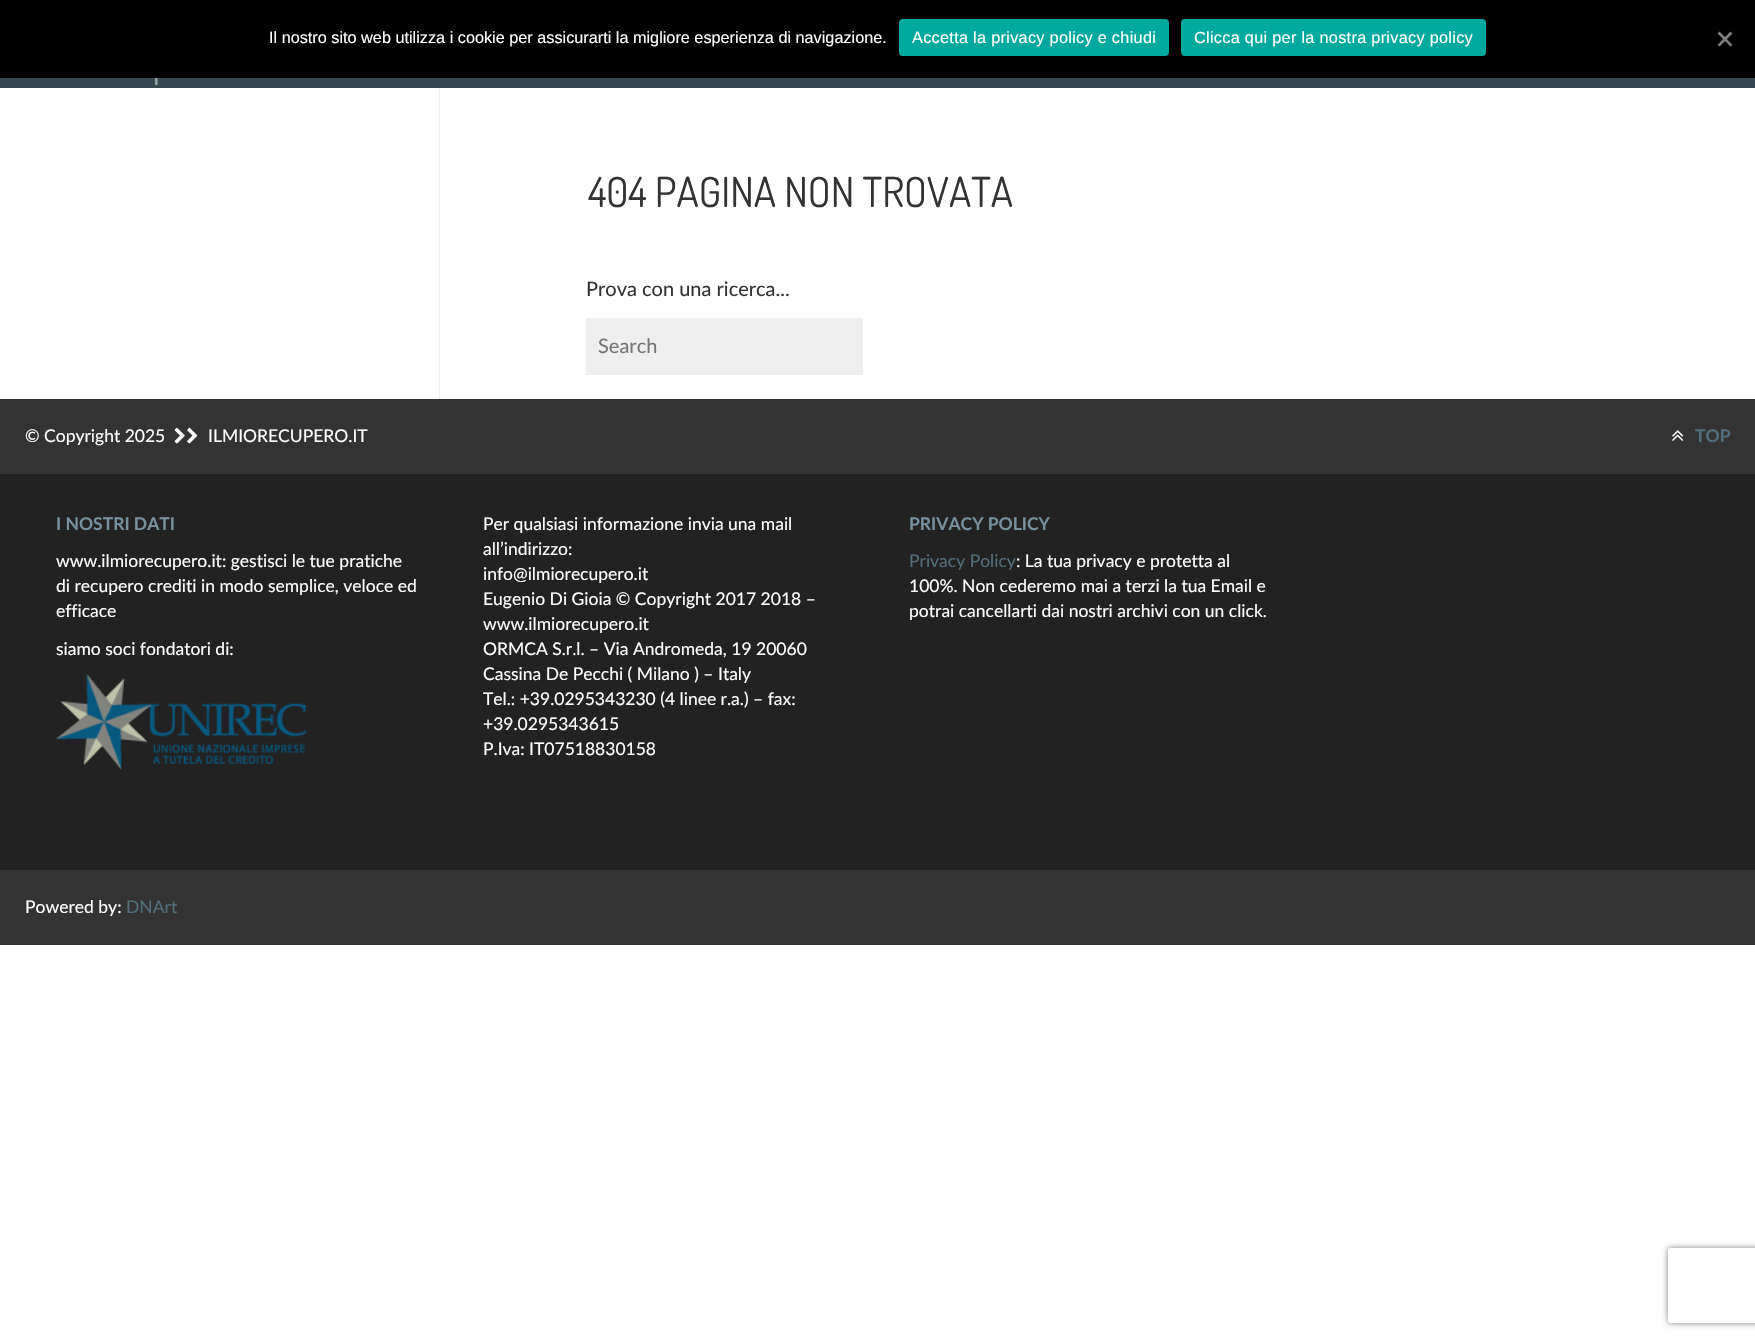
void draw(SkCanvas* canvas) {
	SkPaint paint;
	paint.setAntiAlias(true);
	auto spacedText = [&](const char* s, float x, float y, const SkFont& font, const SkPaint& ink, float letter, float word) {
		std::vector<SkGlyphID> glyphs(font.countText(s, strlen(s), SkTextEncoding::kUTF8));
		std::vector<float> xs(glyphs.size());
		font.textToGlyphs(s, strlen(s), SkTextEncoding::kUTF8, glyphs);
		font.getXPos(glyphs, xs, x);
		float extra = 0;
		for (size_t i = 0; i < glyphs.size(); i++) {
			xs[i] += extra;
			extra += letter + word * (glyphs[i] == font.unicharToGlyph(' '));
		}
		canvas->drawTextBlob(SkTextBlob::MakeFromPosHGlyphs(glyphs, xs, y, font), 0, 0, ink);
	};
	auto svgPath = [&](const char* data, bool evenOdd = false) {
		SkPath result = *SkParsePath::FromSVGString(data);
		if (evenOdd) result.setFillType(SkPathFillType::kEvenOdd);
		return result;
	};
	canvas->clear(0xffffffff);
	paint.setColor(0xff000000);
	canvas->drawRect(SkRect::MakeXYWH(0, 0, 1755, 78), paint);
	SkFont f1(fontMgr->matchFamilyStyle("Liberation Sans", SkFontStyle::Normal()), 16.25);
	f1.setSubpixel(true);
	paint.setColor(0xffffffff);
	canvas->drawString("Il nostro sito web utilizza i cookie per assicurarti la migliore esperienza di navigazione.", 269, 43, f1, paint);
	paint.setColor(0xff00a99d);
	canvas->drawRoundRect(SkRect::MakeXYWH(899, 19, 270, 37), 4, 4, paint);
	paint.setColor(0xffffffff);
	spacedText("Accetta la privacy policy e chiudi", 912, 43, f1, paint, 0.3, 0);
	paint.setColor(0xff00a99d);
	canvas->drawRoundRect(SkRect::MakeXYWH(1181, 19, 305, 37), 4, 4, paint);
	paint.setColor(0xffffffff);
	spacedText("Clicca qui per la nostra privacy policy", 1194, 43, f1, paint, 0.3, 0);
	paint.setColor(0xff808080);
	canvas->drawPath(svgPath("M1730.5 31.5L1732.5 33.5L1719.5 46.5L1717.5 45Z"), paint);
	canvas->drawPath(svgPath("M1717.5 33.5L1719.5 31.5L1732.5 45L1730.5 46.5Z"), paint);
	paint.setColor(0xff36474f);
	canvas->drawRect(SkRect::MakeXYWH(0, 78, 1755, 10), paint);
	canvas->drawImageRect(SkImages::DeferredFromEncodedData(SkData::MakeFromFileName("img1.png")), SkRect::MakeXYWH(154, 78, 4, 8), SkSamplingOptions());
	paint.setColor(0xffeeeeee);
	canvas->drawRect(SkRect::MakeXYWH(439, 88, 1, 311), paint);
	SkFont f2(fontMgr->matchFamilyStyle("Dosis", SkFontStyle::Normal()), 41.25);
	f2.setSubpixel(true);
	paint.setColor(0xff333333);
	canvas->drawString("404 PAGINA NON TROVATA", 588, 207, f2, paint);
	SkFont f3(fontMgr->matchFamilyStyle("Lato", SkFontStyle::Normal()), 20);
	f3.setSubpixel(true);
	canvas->drawString("Prova con una ricerca...", 586, 296, f3, paint);
	paint.setColor(0xffeeeeee);
	canvas->drawRect(SkRect::MakeXYWH(586, 318, 277, 57), paint);
	paint.setColor(0xff757575);
	canvas->drawString("Search", 598, 353, f3, paint);
	paint.setColor(0xff333333);
	canvas->drawRect(SkRect::MakeXYWH(0, 399, 1755, 75), paint);
	SkFont f4(fontMgr->matchFamilyStyle("Lato", SkFontStyle::Normal()), 17.5);
	f4.setSubpixel(true);
	paint.setColor(0xffffffff);
	canvas->drawString("© Copyright 2025", 25, 442, f4, paint);
	canvas->drawImageRect(SkImages::DeferredFromEncodedData(SkData::MakeFromFileName("img2.png")), SkRect::MakeXYWH(174, 427, 11, 17), SkSamplingOptions());
	canvas->drawImageRect(SkImages::DeferredFromEncodedData(SkData::MakeFromFileName("img3.png")), SkRect::MakeXYWH(187, 427, 11, 17), SkSamplingOptions());
	canvas->drawString("ILMIORECUPERO.IT", 208, 442, f4, paint);
	canvas->drawImageRect(SkImages::DeferredFromEncodedData(SkData::MakeFromFileName("img4.png")), SkRect::MakeXYWH(1672, 430, 12, 11), SkSamplingOptions());
	SkFont f5(fontMgr->matchFamilyStyle("Lato", SkFontStyle::Bold()), 17.5);
	f5.setSubpixel(true);
	paint.setColor(0xff536e7b);
	canvas->drawString("TOP", 1695, 442, f5, paint);
	paint.setColor(0xff222222);
	canvas->drawRect(SkRect::MakeXYWH(0, 474, 1755, 396), paint);
	paint.setColor(0xff77909d);
	canvas->drawString("I NOSTRI DATI", 56, 530, f5, paint);
	paint.setColor(0xffffffff);
	canvas->drawString("www.ilmiorecupero.it: gestisci le tue pratiche", 56, 567, f4, paint);
	canvas->drawString("di recupero crediti in modo semplice, veloce ed", 56, 592, f4, paint);
	canvas->drawString("efficace", 56, 617, f4, paint);
	canvas->drawString("siamo soci fondatori di:", 56, 655, f4, paint);
	canvas->drawImageRect(SkImages::DeferredFromEncodedData(SkData::MakeFromFileName("img5.png")), SkRect::MakeXYWH(56, 674, 251, 96), SkSamplingOptions());
	canvas->drawString("Per qualsiasi informazione invia una mail", 483, 530, f4, paint);
	canvas->drawString("all’indirizzo:", 483, 555, f4, paint);
	canvas->drawString("info@ilmiorecupero.it", 483, 580, f4, paint);
	canvas->drawString("Eugenio Di Gioia © Copyright 2017 2018 –", 483, 605, f4, paint);
	canvas->drawString("www.ilmiorecupero.it", 483, 630, f4, paint);
	canvas->drawString("ORMCA S.r.l. – Via Andromeda, 19 20060", 483, 655, f4, paint);
	canvas->drawString("Cassina De Pecchi ( Milano ) – Italy", 483, 680, f4, paint);
	canvas->drawString("Tel.: +39.0295343230 (4 linee r.a.) – fax:", 483, 705, f4, paint);
	canvas->drawString("+39.0295343615", 483, 730, f4, paint);
	canvas->drawString("P.Iva: IT07518830158", 483, 755, f4, paint);
	paint.setColor(0xff77909d);
	canvas->drawString("PRIVACY POLICY", 909, 530, f5, paint);
	paint.setColor(0xff536e7b);
	canvas->drawString("Privacy Policy", 909, 567, f4, paint);
	paint.setColor(0xffffffff);
	canvas->drawString(": La tua privacy e protetta al", 1016, 567, f4, paint);
	canvas->drawString("100%. Non cederemo mai a terzi la tua Email e", 909, 592, f4, paint);
	canvas->drawString("potrai cancellarti dai nostri archivi con un click.", 909, 617, f4, paint);
	paint.setColor(0xff333333);
	canvas->drawRect(SkRect::MakeXYWH(0, 870, 1755, 75), paint);
	paint.setColor(0xffffffff);
	canvas->drawString("Powered by:", 25, 913, f4, paint);
	paint.setColor(0xff536e7b);
	canvas->drawString("DNArt", 126, 913, f4, paint);
	canvas->save();
	canvas->clipPath(svgPath("M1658 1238H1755V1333H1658ZM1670.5 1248H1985.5C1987 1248 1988 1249 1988 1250.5V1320.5C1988 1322 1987 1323 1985.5 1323H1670.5C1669 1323 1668 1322 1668 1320.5V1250.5C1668 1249 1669 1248 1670.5 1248Z", true), true);
	paint.setColor(0xff808080);
	paint.setMaskFilter(SkMaskFilter::MakeBlur(kNormal_SkBlurStyle, 3));
	canvas->drawRoundRect(SkRect::MakeXYWH(1668, 1248, 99, 75), 2.5, 2.5, paint);
	paint.setMaskFilter(nullptr);
	canvas->restore();
}
